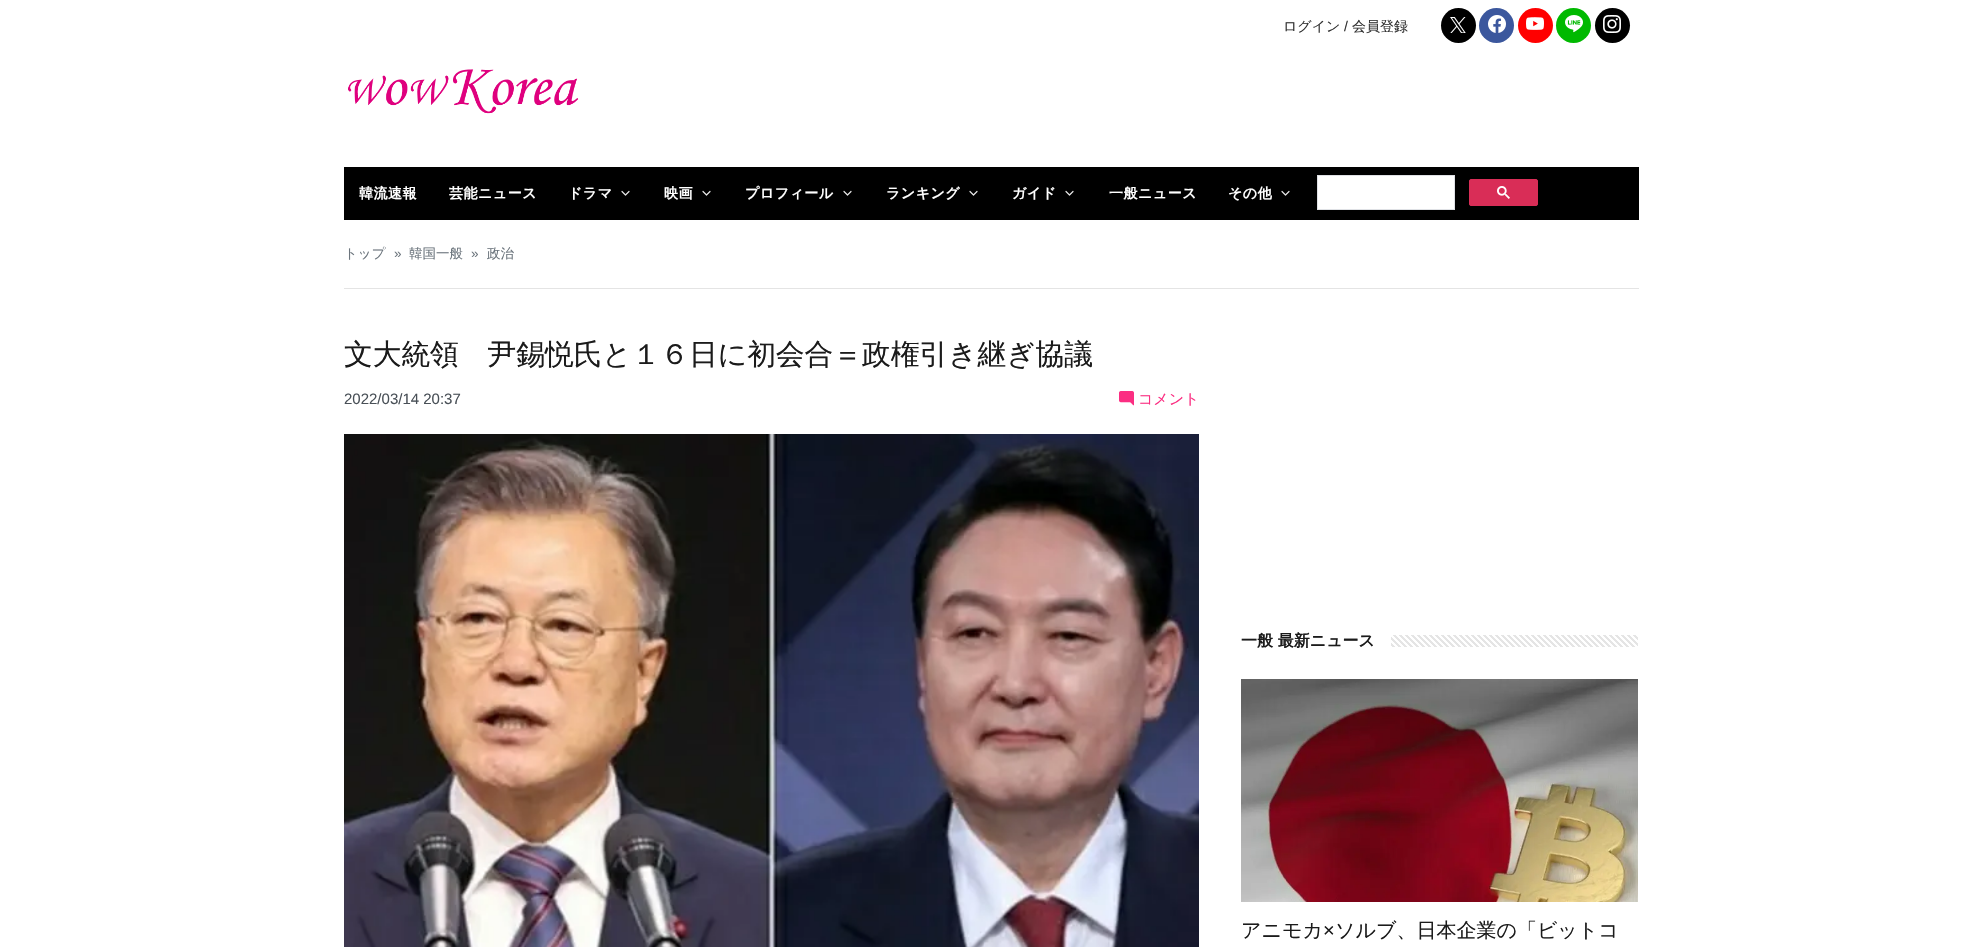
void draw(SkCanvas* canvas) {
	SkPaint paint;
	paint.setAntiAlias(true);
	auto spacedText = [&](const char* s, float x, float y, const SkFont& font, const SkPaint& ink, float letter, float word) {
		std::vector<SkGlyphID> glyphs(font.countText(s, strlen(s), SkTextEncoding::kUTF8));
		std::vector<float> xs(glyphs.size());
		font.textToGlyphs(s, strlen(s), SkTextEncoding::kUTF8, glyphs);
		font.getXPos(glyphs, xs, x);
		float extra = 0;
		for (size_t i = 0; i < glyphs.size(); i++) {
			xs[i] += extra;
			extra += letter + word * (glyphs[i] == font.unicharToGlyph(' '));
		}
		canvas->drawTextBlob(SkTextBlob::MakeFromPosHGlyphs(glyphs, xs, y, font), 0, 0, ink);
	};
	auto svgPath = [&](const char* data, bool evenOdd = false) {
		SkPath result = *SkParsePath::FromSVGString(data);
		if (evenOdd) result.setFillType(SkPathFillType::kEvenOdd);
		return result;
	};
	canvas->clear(0xffffffff);
	SkFont f1(fontMgr->matchFamilyStyle("WenQuanYi Zen Hei", SkFontStyle(500, SkFontStyle::kNormal_Width, SkFontStyle::kUpright_Slant)), 14);
	f1.setSubpixel(true);
	paint.setColor(0xff323232);
	canvas->drawString("ログイン", 1283, 31, f1, paint);
	SkFont f2(fontMgr->matchFamilyStyle("Liberation Sans", SkFontStyle::Normal()), 14);
	f2.setSubpixel(true);
	canvas->drawString("/", 1344, 31, f2, paint);
	canvas->drawString("会員登録", 1352, 31, f1, paint);
	paint.setColor(0xff000000);
	canvas->drawCircle(1458.5, 25.5, 17.5, paint);
	canvas->drawImageRect(SkImages::DeferredFromEncodedData(SkData::MakeFromFileName("img1.png")), SkRect::MakeXYWH(1450, 17, 16, 16), SkSamplingOptions());
	paint.setColor(0xff3b579d);
	canvas->drawCircle(1496.5, 25.5, 17.5, paint);
	canvas->drawImageRect(SkImages::DeferredFromEncodedData(SkData::MakeFromFileName("img2.png")), SkRect::MakeXYWH(1488, 15, 18, 18), SkSamplingOptions());
	paint.setColor(0xffff0000);
	canvas->drawCircle(1535.5, 25.5, 17.5, paint);
	canvas->drawImageRect(SkImages::DeferredFromEncodedData(SkData::MakeFromFileName("img3.png")), SkRect::MakeXYWH(1526, 17, 18, 13), SkSamplingOptions());
	paint.setColor(0xff00b900);
	canvas->drawCircle(1573.5, 25.5, 17.5, paint);
	canvas->drawImageRect(SkImages::DeferredFromEncodedData(SkData::MakeFromFileName("img4.png")), SkRect::MakeXYWH(1565, 15, 18, 18), SkSamplingOptions());
	paint.setColor(0xff000000);
	canvas->drawCircle(1612.5, 25.5, 17.5, paint);
	canvas->drawImageRect(SkImages::DeferredFromEncodedData(SkData::MakeFromFileName("img5.png")), SkRect::MakeXYWH(1603, 15, 18, 18), SkSamplingOptions());
	canvas->drawImageRect(SkImages::DeferredFromEncodedData(SkData::MakeFromFileName("img6.png")), SkRect::MakeXYWH(348, 69, 231, 45), SkSamplingOptions());
	canvas->drawRect(SkRect::MakeXYWH(344, 167, 1295, 53), paint);
	SkFont f3(fontMgr->matchFamilyStyle("WenQuanYi Zen Hei", SkFontStyle::Bold()), 14);
	f3.setSubpixel(true);
	paint.setColor(0xffffffff);
	spacedText("韓流速報", 359, 198, f3, paint, 0.5, 0);
	spacedText("芸能ニュース", 449, 198, f3, paint, 0.5, 0);
	spacedText("ドラマ", 568, 198, f3, paint, 0.5, 0);
	paint.setStroke(true);
	paint.setStrokeWidth(1.2);
	paint.setStrokeCap(SkPaint::kRound_Cap);
	paint.setStrokeJoin(SkPaint::kRound_Join);
	paint.setColor(0xffe6e6e6);
	canvas->drawPath(svgPath("M622 191.5L625.5 195L629 191.5"), paint);
	paint.setStroke(false);
	paint.setColor(0xffffffff);
	spacedText("映画", 664, 198, f3, paint, 0.5, 0);
	paint.setStroke(true);
	paint.setColor(0xffe6e6e6);
	canvas->drawPath(svgPath("M703 191.5L706.5 195L710 191.5"), paint);
	paint.setStroke(false);
	paint.setColor(0xffffffff);
	spacedText("プロフィール", 745, 198, f3, paint, 0.5, 0);
	paint.setStroke(true);
	paint.setColor(0xffe6e6e6);
	canvas->drawPath(svgPath("M844 191.5L847.5 195L851 191.5"), paint);
	paint.setStroke(false);
	paint.setColor(0xffffffff);
	spacedText("ランキング", 886, 198, f3, paint, 0.5, 0);
	paint.setStroke(true);
	paint.setColor(0xffe6e6e6);
	canvas->drawPath(svgPath("M970 191.5L973.5 195L977 191.5"), paint);
	paint.setStroke(false);
	paint.setColor(0xffffffff);
	spacedText("ガイド", 1012, 198, f3, paint, 0.5, 0);
	paint.setStroke(true);
	paint.setColor(0xffe6e6e6);
	canvas->drawPath(svgPath("M1066 191.5L1069.5 195L1073 191.5"), paint);
	paint.setStroke(false);
	paint.setColor(0xffffffff);
	spacedText("一般ニュース", 1109, 198, f3, paint, 0.5, 0);
	spacedText("その他", 1228, 198, f3, paint, 0.5, 0);
	paint.setStroke(true);
	paint.setColor(0xffe6e6e6);
	canvas->drawPath(svgPath("M1282 191.5L1285.5 195L1289 191.5"), paint);
	paint.setStroke(false);
	paint.setColor(0xffffffff);
	canvas->drawRect(SkRect::MakeXYWH(1317.5, 175.5, 137, 34), paint);
	paint.setStroke(true);
	paint.setStrokeWidth(1);
	paint.setStrokeCap(SkPaint::kButt_Cap);
	paint.setStrokeJoin(SkPaint::kMiter_Join);
	paint.setColor(0xffdfe1e5);
	canvas->drawRect(SkRect::MakeXYWH(1317.5, 175.5, 137, 34), paint);
	paint.setStroke(false);
	paint.setColor(0xffd92d57);
	canvas->drawRoundRect(SkRect::MakeXYWH(1469.5, 179.5, 68, 26), 1.5, 1.5, paint);
	paint.setStroke(true);
	canvas->drawRoundRect(SkRect::MakeXYWH(1469.5, 179.5, 68, 26), 1.5, 1.5, paint);
	canvas->drawImageRect(SkImages::DeferredFromEncodedData(SkData::MakeFromFileName("img7.png")), SkRect::MakeXYWH(1497, 186, 13, 13), SkSamplingOptions());
	SkFont f4(fontMgr->matchFamilyStyle("WenQuanYi Zen Hei", SkFontStyle(500, SkFontStyle::kNormal_Width, SkFontStyle::kUpright_Slant)), 13.5);
	f4.setSubpixel(true);
	paint.setStroke(false);
	paint.setColor(0xff6c757d);
	canvas->drawString("トップ", 344, 258, f4, paint);
	SkFont f5(fontMgr->matchFamilyStyle("Liberation Sans", SkFontStyle::Normal()), 13.5);
	f5.setSubpixel(true);
	canvas->drawString("»", 394, 258, f5, paint);
	canvas->drawString("韓国一般", 409, 258, f4, paint);
	canvas->drawString("»", 471, 258, f5, paint);
	canvas->drawString("政治", 487, 258, f4, paint);
	paint.setColor(0xffe4e4e4);
	canvas->drawRect(SkRect::MakeXYWH(344, 288, 1295, 1), paint);
	SkFont f6(fontMgr->matchFamilyStyle("WenQuanYi Zen Hei", SkFontStyle(500, SkFontStyle::kNormal_Width, SkFontStyle::kUpright_Slant)), 28.8);
	f6.setSubpixel(true);
	paint.setColor(0xff1b1b1b);
	spacedText("文大統領　尹錫悦氏と１６日に初会合＝政権引き継ぎ協議", 344, 364, f6, paint, -0.1, 0);
	SkFont f7(fontMgr->matchFamilyStyle("Liberation Sans", SkFontStyle::Normal()), 15);
	f7.setSubpixel(true);
	paint.setColor(0xff495057);
	canvas->drawString("2022/03/14 20:37", 344, 404, f7, paint);
	canvas->drawImageRect(SkImages::DeferredFromEncodedData(SkData::MakeFromFileName("img8.png")), SkRect::MakeXYWH(1119, 391, 15, 15), SkSamplingOptions());
	SkFont f8(fontMgr->matchFamilyStyle("WenQuanYi Zen Hei", SkFontStyle(500, SkFontStyle::kNormal_Width, SkFontStyle::kUpright_Slant)), 15);
	f8.setSubpixel(true);
	paint.setColor(0xfffb2e82);
	canvas->drawString("コメント", 1138, 404, f8, paint);
	canvas->drawImageRect(SkImages::DeferredFromEncodedData(SkData::MakeFromFileName("img9.png")), SkRect::MakeXYWH(344, 434, 855, 513), SkSamplingOptions());
	SkFont f9(fontMgr->matchFamilyStyle("WenQuanYi Zen Hei", SkFontStyle::Bold()), 16);
	f9.setSubpixel(true);
	paint.setColor(0xff1b1b1b);
	canvas->drawString("一般 最新ニュース", 1241, 646, f9, paint);
	canvas->drawImageRect(SkImages::DeferredFromEncodedData(SkData::MakeFromFileName("img10.png")), SkRect::MakeXYWH(1391, 635, 247, 12), SkSamplingOptions());
	canvas->drawImageRect(SkImages::DeferredFromEncodedData(SkData::MakeFromFileName("img11.png")), SkRect::MakeXYWH(1241, 679, 397, 223), SkSamplingOptions());
	SkFont f10(fontMgr->matchFamilyStyle("WenQuanYi Zen Hei", SkFontStyle(500, SkFontStyle::kNormal_Width, SkFontStyle::kUpright_Slant)), 20);
	f10.setSubpixel(true);
	canvas->drawString("アニモカ", 1241, 937, f10, paint);
	SkFont f11(fontMgr->matchFamilyStyle("Liberation Sans", SkFontStyle::Normal()), 20);
	f11.setSubpixel(true);
	canvas->drawString("×", 1323, 937, f11, paint);
	canvas->drawString("ソルブ、日本企業の「ビットコ", 1335, 937, f10, paint);
}
